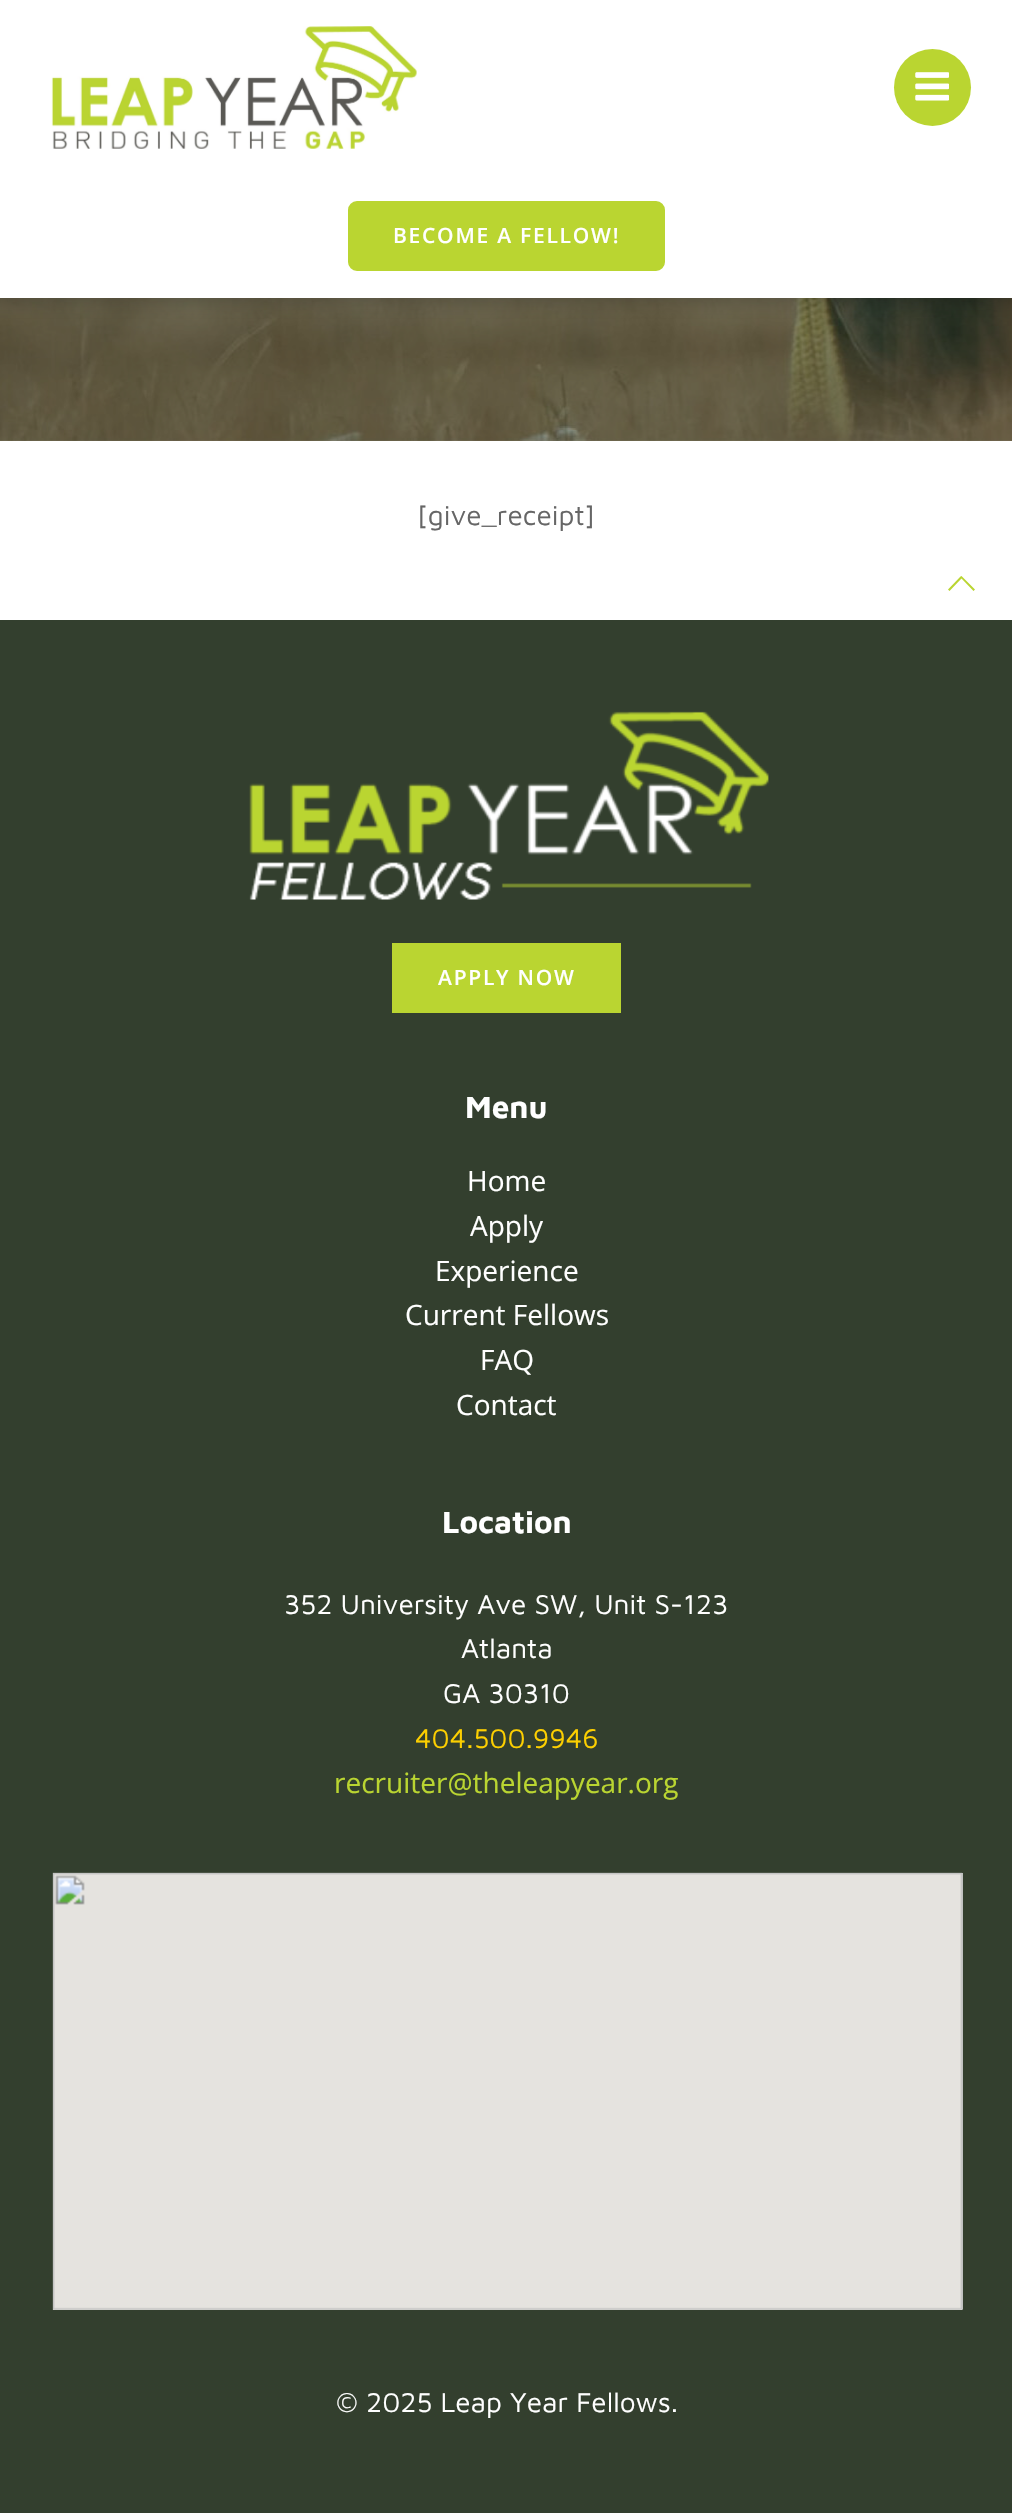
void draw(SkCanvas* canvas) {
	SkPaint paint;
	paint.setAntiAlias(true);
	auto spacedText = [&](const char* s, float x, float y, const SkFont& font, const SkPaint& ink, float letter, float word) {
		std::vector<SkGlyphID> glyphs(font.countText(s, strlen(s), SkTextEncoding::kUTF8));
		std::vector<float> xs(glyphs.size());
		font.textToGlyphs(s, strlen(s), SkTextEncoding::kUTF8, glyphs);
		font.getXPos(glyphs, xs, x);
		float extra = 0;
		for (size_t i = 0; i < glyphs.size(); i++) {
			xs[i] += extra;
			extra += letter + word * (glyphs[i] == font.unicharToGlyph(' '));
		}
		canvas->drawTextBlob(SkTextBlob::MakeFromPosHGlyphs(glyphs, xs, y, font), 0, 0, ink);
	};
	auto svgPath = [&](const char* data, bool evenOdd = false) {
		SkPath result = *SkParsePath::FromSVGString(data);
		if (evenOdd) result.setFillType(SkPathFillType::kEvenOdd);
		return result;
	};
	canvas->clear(0xffffffff);
	canvas->drawImageRect(SkImages::DeferredFromEncodedData(SkData::MakeFromFileName("img3.png")), SkRect::MakeXYWH(0, 298, 1012, 143), SkSamplingOptions());
	paint.setColor(0x33000000);
	paint.setMaskFilter(SkMaskFilter::MakeBlur(kNormal_SkBlurStyle, 9));
	canvas->drawRect(SkRect::MakeXYWH(-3, -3, 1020, 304), paint);
	paint.setMaskFilter(nullptr);
	paint.setColor(0xffffffff);
	canvas->drawRect(SkRect::MakeXYWH(0, 0, 1012, 298), paint);
	canvas->drawImageRect(SkImages::DeferredFromEncodedData(SkData::MakeFromFileName("img1.png")), SkRect::MakeXYWH(51, 26, 366, 123), SkSamplingOptions());
	paint.setColor(0xffbad531);
	canvas->drawCircle(932.5, 87.5, 38.5, paint);
	canvas->drawImageRect(SkImages::DeferredFromEncodedData(SkData::MakeFromFileName("img2.png")), SkRect::MakeXYWH(915, 72, 34, 29), SkSamplingOptions());
	canvas->drawRoundRect(SkRect::MakeXYWH(350, 203, 313, 66), 7, 7, paint);
	paint.setStroke(true);
	paint.setStrokeWidth(4);
	canvas->drawRoundRect(SkRect::MakeXYWH(350, 203, 313, 66), 7, 7, paint);
	SkFont f1(fontMgr->matchFamilyStyle("Open Sans", SkFontStyle(600, SkFontStyle::kNormal_Width, SkFontStyle::kUpright_Slant)), 21);
	f1.setSubpixel(true);
	paint.setStroke(false);
	paint.setColor(0xffffffff);
	spacedText("BECOME A FELLOW!", 393, 243, f1, paint, 1.75, 0);
	SkFont f2(fontMgr->matchFamilyStyle("Maven Pro", SkFontStyle::Normal()), 28);
	f2.setSubpixel(true);
	paint.setColor(0xff666666);
	canvas->drawString("[give_receipt]", 417, 525, f2, paint);
	paint.setColor(0xffbad531);
	canvas->drawPath(svgPath("M961.5 576L975 589.5L973.5 591L961.5 578.5L949.5 591L948 589.5L960.5 576.5Z"), paint);
	paint.setColor(0xff333f2e);
	canvas->drawRect(SkRect::MakeXYWH(0, 620, 1012, 1893), paint);
	canvas->drawImageRect(SkImages::DeferredFromEncodedData(SkData::MakeFromFileName("img4.png")), SkRect::MakeXYWH(249, 711, 520, 189), SkSamplingOptions());
	paint.setColor(0xffbad531);
	canvas->drawRect(SkRect::MakeXYWH(392, 943, 229, 70), paint);
	paint.setColor(0xffffffff);
	spacedText("APPLY NOW", 438, 985, f1, paint, 1.75, 0);
	SkFont f3(fontMgr->matchFamilyStyle("Maven Pro", SkFontStyle::Bold()), 31.5);
	f3.setSubpixel(true);
	canvas->drawString("Menu", 465, 1118, f3, paint);
	SkFont f4(fontMgr->matchFamilyStyle("Open Sans", SkFontStyle::Normal()), 28);
	f4.setSubpixel(true);
	canvas->drawString("Home", 467, 1191, f4, paint);
	canvas->drawString("Apply", 470, 1236, f4, paint);
	canvas->drawString("Experience", 435, 1281, f4, paint);
	canvas->drawString("Current Fellows", 405, 1325, f4, paint);
	canvas->drawString("FAQ", 480, 1370, f4, paint);
	canvas->drawString("Contact", 456, 1415, f4, paint);
	canvas->drawString("Location", 442, 1533, f3, paint);
	canvas->drawString("352 University Ave SW, Unit S-123", 284, 1614, f2, paint);
	canvas->drawString("Atlanta", 461, 1658, f2, paint);
	canvas->drawString("GA 30310", 443, 1703, f2, paint);
	paint.setColor(0xfffdcf00);
	canvas->drawString("404.500.9946", 415, 1748, f2, paint);
	paint.setColor(0xffbad531);
	canvas->drawString("recruiter@theleapyear.org", 334, 1793, f4, paint);
	canvas->drawImageRect(SkImages::DeferredFromEncodedData(SkData::MakeFromFileName("img5.png")), SkRect::MakeXYWH(52, 1872, 911, 438), SkSamplingOptions());
	paint.setColor(0xffffffff);
	canvas->drawString("© 2025 Leap Year Fellows.", 336, 2412, f2, paint);
}
